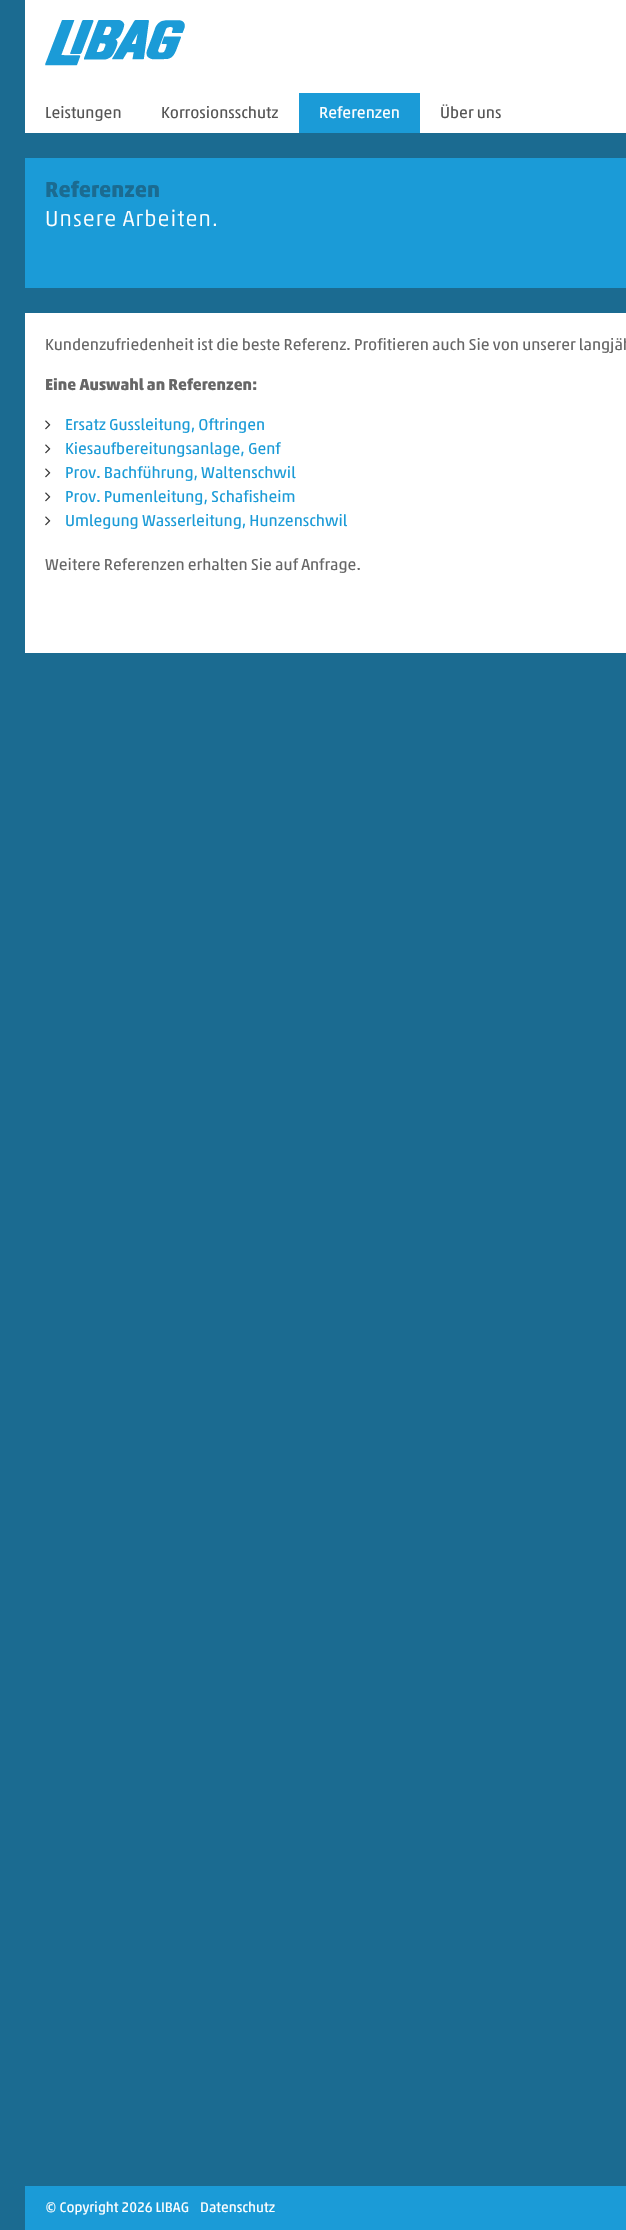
void draw(SkCanvas* canvas) {
	SkPaint paint;
	paint.setAntiAlias(true);
	auto spacedText = [&](const char* s, float x, float y, const SkFont& font, const SkPaint& ink, float letter, float word) {
		std::vector<SkGlyphID> glyphs(font.countText(s, strlen(s), SkTextEncoding::kUTF8));
		std::vector<float> xs(glyphs.size());
		font.textToGlyphs(s, strlen(s), SkTextEncoding::kUTF8, glyphs);
		font.getXPos(glyphs, xs, x);
		float extra = 0;
		for (size_t i = 0; i < glyphs.size(); i++) {
			xs[i] += extra;
			extra += letter + word * (glyphs[i] == font.unicharToGlyph(' '));
		}
		canvas->drawTextBlob(SkTextBlob::MakeFromPosHGlyphs(glyphs, xs, y, font), 0, 0, ink);
	};
	canvas->clear(0xff1b6b91);
	paint.setColor(0xffffffff);
	canvas->drawRect(SkRect::MakeXYWH(25, 0, 601, 133), paint);
	canvas->drawImageRect(SkImages::DeferredFromEncodedData(SkData::MakeFromFileName("img1.png")), SkRect::MakeXYWH(45, 20, 140, 46), SkSamplingOptions());
	SkFont f1(fontMgr->matchFamilyStyle("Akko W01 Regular", SkFontStyle::Normal()), 16);
	f1.setSubpixel(true);
	paint.setColor(0xff555555);
	canvas->drawString("Leistungen", 45, 118, f1, paint);
	canvas->drawString("Korrosionsschutz", 161, 118, f1, paint);
	paint.setColor(0xff1b9bd7);
	canvas->drawRect(SkRect::MakeXYWH(299, 93, 121, 40), paint);
	paint.setColor(0xffffffff);
	canvas->drawString("Referenzen", 319, 118, f1, paint);
	paint.setColor(0xff555555);
	canvas->drawString("Über uns", 440, 118, f1, paint);
	paint.setColor(0xff1b9bd7);
	canvas->drawRect(SkRect::MakeXYWH(25, 158, 601, 130), paint);
	SkFont f2(fontMgr->matchFamilyStyle("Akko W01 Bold", SkFontStyle::Bold()), 22);
	f2.setSubpixel(true);
	paint.setColor(0xff1b6b91);
	canvas->drawString("Referenzen", 45, 197, f2, paint);
	paint.setColor(0xffffffff);
	canvas->drawRect(SkRect::MakeXYWH(25, 313, 601, 340), paint);
	SkFont f3(fontMgr->matchFamilyStyle("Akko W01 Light", SkFontStyle(300, SkFontStyle::kNormal_Width, SkFontStyle::kUpright_Slant)), 22);
	f3.setSubpixel(true);
	spacedText("Unsere Arbeiten.", 45, 226, f3, paint, 1.1, 0);
	paint.setColor(0xff666666);
	canvas->drawString("Kundenzufriedenheit ist die beste Referenz. Profitieren auch Sie von unserer langjäh", 45, 350, f1, paint);
	SkFont f4(fontMgr->matchFamilyStyle("Akko W01 Bold", SkFontStyle::Bold()), 16);
	f4.setSubpixel(true);
	canvas->drawString("Eine Auswahl an Referenzen:", 45, 390, f4, paint);
	canvas->drawImageRect(SkImages::DeferredFromEncodedData(SkData::MakeFromFileName("img2.png")), SkRect::MakeXYWH(45, 420, 6, 10), SkSamplingOptions());
	paint.setColor(0xff1b9bd7);
	canvas->drawString("Ersatz Gussleitung, Oftringen", 65, 430, f1, paint);
	canvas->drawImageRect(SkImages::DeferredFromEncodedData(SkData::MakeFromFileName("img2.png")), SkRect::MakeXYWH(45, 444, 6, 10), SkSamplingOptions());
	canvas->drawString("Kiesaufbereitungsanlage, Genf", 65, 454, f1, paint);
	canvas->drawImageRect(SkImages::DeferredFromEncodedData(SkData::MakeFromFileName("img2.png")), SkRect::MakeXYWH(45, 468, 6, 10), SkSamplingOptions());
	canvas->drawString("Prov. Bachführung, Waltenschwil", 65, 478, f1, paint);
	canvas->drawImageRect(SkImages::DeferredFromEncodedData(SkData::MakeFromFileName("img2.png")), SkRect::MakeXYWH(45, 492, 6, 10), SkSamplingOptions());
	canvas->drawString("Prov. Pumenleitung, Schafisheim", 65, 502, f1, paint);
	canvas->drawImageRect(SkImages::DeferredFromEncodedData(SkData::MakeFromFileName("img2.png")), SkRect::MakeXYWH(45, 516, 6, 10), SkSamplingOptions());
	canvas->drawString("Umlegung Wasserleitung, Hunzenschwil", 65, 526, f1, paint);
	paint.setColor(0xff666666);
	canvas->drawString("Weitere Referenzen erhalten Sie auf Anfrage.", 45, 570, f1, paint);
	paint.setColor(0xff1b9bd7);
	canvas->drawRect(SkRect::MakeXYWH(25, 2186, 601, 44), paint);
	SkFont f5(fontMgr->matchFamilyStyle("Akko W01 Regular", SkFontStyle::Normal()), 14);
	f5.setSubpixel(true);
	paint.setColor(0xffffffff);
	canvas->drawString("© Copyright 2026 LIBAG", 45, 2212, f5, paint);
	canvas->drawString("Datenschutz", 200, 2212, f5, paint);
}
